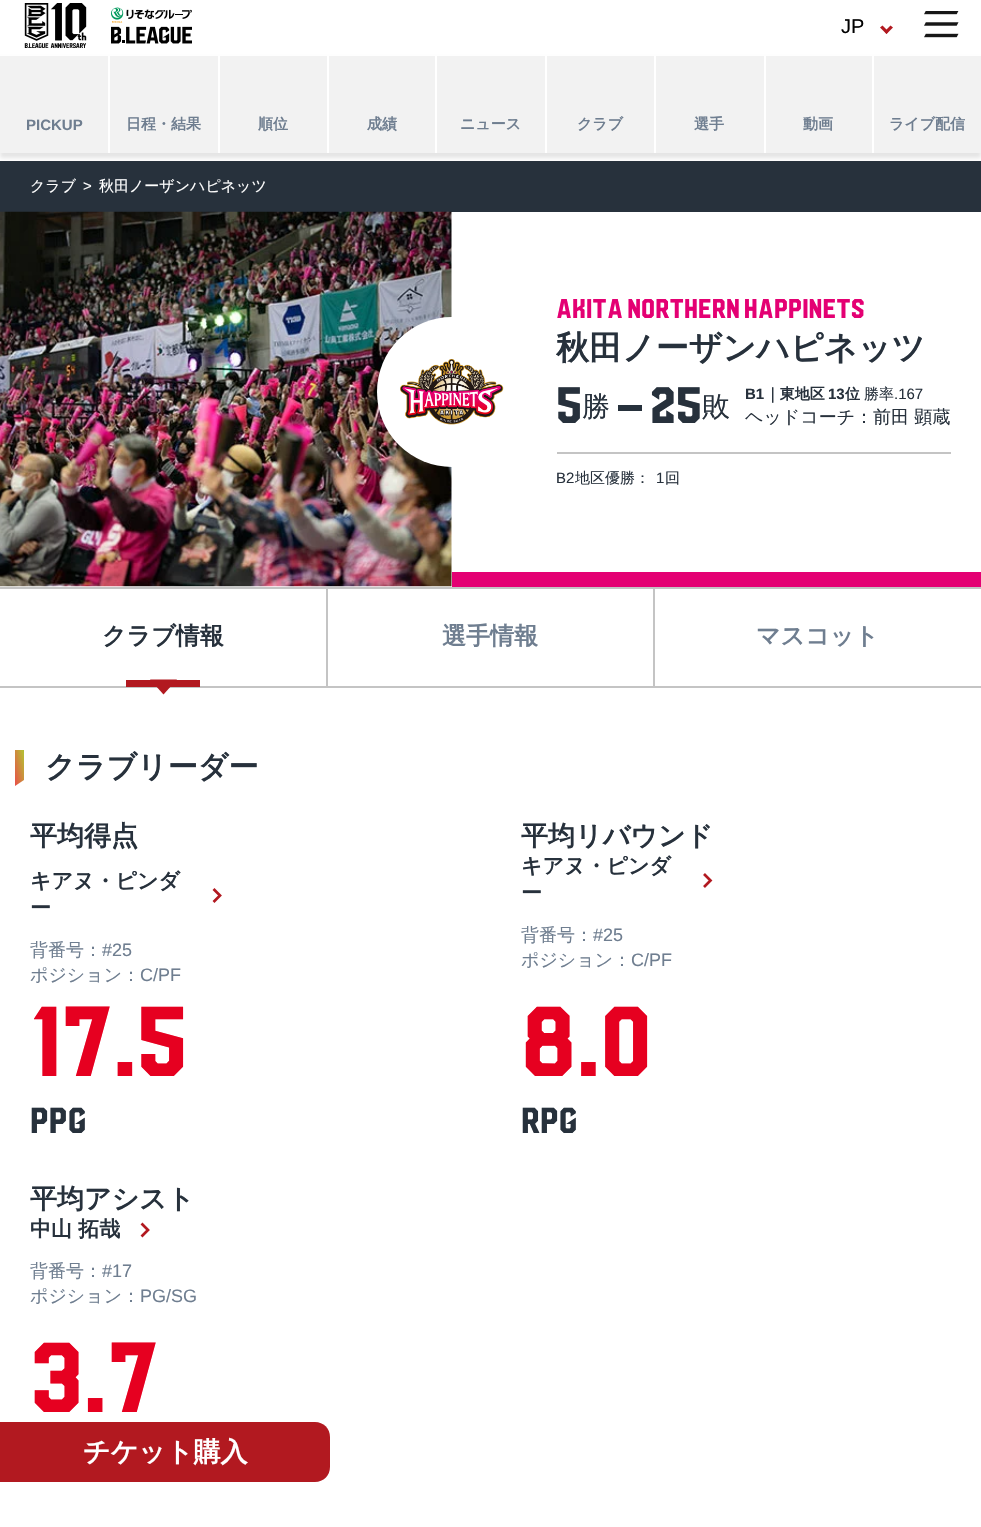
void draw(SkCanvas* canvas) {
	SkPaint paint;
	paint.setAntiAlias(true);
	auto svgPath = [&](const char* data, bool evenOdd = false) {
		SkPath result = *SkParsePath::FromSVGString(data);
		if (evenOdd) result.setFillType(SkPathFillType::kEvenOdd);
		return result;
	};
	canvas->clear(0xffffffff);
	canvas->drawImageRect(SkImages::DeferredFromEncodedData(SkData::MakeFromFileName("img1.png")), SkRect::MakeXYWH(24, 3, 63, 45), SkSamplingOptions());
	canvas->drawImageRect(SkImages::DeferredFromEncodedData(SkData::MakeFromFileName("img2.png")), SkRect::MakeXYWH(111, 7, 81, 37), SkSamplingOptions());
	SkFont f1(fontMgr->matchFamilyStyle("Liberation Sans", SkFontStyle::Normal()), 20);
	f1.setSubpixel(true);
	paint.setColor(0xff000000);
	canvas->drawString("JP", 841, 33, f1, paint);
	paint.setColor(0xffb21920);
	canvas->drawPath(svgPath("M890.5 25.5L893 27.5L886.5 34L884.5 31.5Z"), paint);
	canvas->drawPath(svgPath("M882.5 25.5L888.5 31.5L886.5 34L880 27.5Z"), paint);
	canvas->drawImageRect(SkImages::DeferredFromEncodedData(SkData::MakeFromFileName("img3.png")), SkRect::MakeXYWH(924, 11, 35, 27), SkSamplingOptions());
	paint.setColor(0xff27313c);
	canvas->drawRect(SkRect::MakeXYWH(0, 161, 981, 51), paint);
	paint.setColor(0x1a000000);
	paint.setMaskFilter(SkMaskFilter::MakeBlur(kNormal_SkBlurStyle, 2));
	canvas->drawRect(SkRect::MakeXYWH(0, 60, 981, 98), paint);
	paint.setMaskFilter(nullptr);
	paint.setColor(0xfff2f2f2);
	canvas->drawRect(SkRect::MakeXYWH(0, 56, 108, 97), paint);
	SkFont f2(fontMgr->matchFamilyStyle("Liberation Sans", SkFontStyle::Bold()), 15);
	f2.setSubpixel(true);
	paint.setColor(0xff6f7e90);
	canvas->drawString("PICKUP", 26, 130, f2, paint);
	paint.setColor(0xfff2f2f2);
	canvas->drawRect(SkRect::MakeXYWH(110, 56, 108, 97), paint);
	paint.setColor(0xffffffff);
	canvas->drawRect(SkRect::MakeXYWH(108, 56, 2, 97), paint);
	SkFont f3(fontMgr->matchFamilyStyle("WenQuanYi Zen Hei", SkFontStyle::Bold()), 15);
	f3.setSubpixel(true);
	paint.setColor(0xff6f7e90);
	canvas->drawString("日程・結果", 126, 129, f3, paint);
	paint.setColor(0xfff2f2f2);
	canvas->drawRect(SkRect::MakeXYWH(220, 56, 107, 97), paint);
	paint.setColor(0xffffffff);
	canvas->drawRect(SkRect::MakeXYWH(218, 56, 2, 97), paint);
	paint.setColor(0xff6f7e90);
	canvas->drawString("順位", 258, 129, f3, paint);
	paint.setColor(0xfff2f2f2);
	canvas->drawRect(SkRect::MakeXYWH(329, 56, 106, 97), paint);
	paint.setColor(0xffffffff);
	canvas->drawRect(SkRect::MakeXYWH(327, 56, 2, 97), paint);
	paint.setColor(0xff6f7e90);
	canvas->drawString("成績", 367, 129, f3, paint);
	paint.setColor(0xfff2f2f2);
	canvas->drawRect(SkRect::MakeXYWH(437, 56, 108, 97), paint);
	paint.setColor(0xffffffff);
	canvas->drawRect(SkRect::MakeXYWH(435, 56, 2, 97), paint);
	paint.setColor(0xff6f7e90);
	canvas->drawString("ニュース", 460, 129, f3, paint);
	paint.setColor(0xfff2f2f2);
	canvas->drawRect(SkRect::MakeXYWH(547, 56, 107, 97), paint);
	paint.setColor(0xffffffff);
	canvas->drawRect(SkRect::MakeXYWH(545, 56, 2, 97), paint);
	paint.setColor(0xff6f7e90);
	canvas->drawString("クラブ", 577, 129, f3, paint);
	paint.setColor(0xfff2f2f2);
	canvas->drawRect(SkRect::MakeXYWH(656, 56, 108, 97), paint);
	paint.setColor(0xffffffff);
	canvas->drawRect(SkRect::MakeXYWH(654, 56, 2, 97), paint);
	paint.setColor(0xff6f7e90);
	canvas->drawString("選手", 694, 129, f3, paint);
	paint.setColor(0xfff2f2f2);
	canvas->drawRect(SkRect::MakeXYWH(766, 56, 106, 97), paint);
	paint.setColor(0xffffffff);
	canvas->drawRect(SkRect::MakeXYWH(764, 56, 2, 97), paint);
	paint.setColor(0xff6f7e90);
	canvas->drawString("動画", 803, 129, f3, paint);
	paint.setColor(0xfff2f2f2);
	canvas->drawRect(SkRect::MakeXYWH(874, 56, 107, 97), paint);
	paint.setColor(0xffffffff);
	canvas->drawRect(SkRect::MakeXYWH(872, 56, 2, 97), paint);
	paint.setColor(0xff6f7e90);
	canvas->drawString("ライブ配信", 889, 129, f3, paint);
	SkFont f4(fontMgr->matchFamilyStyle("WenQuanYi Zen Hei", SkFontStyle(500, SkFontStyle::kNormal_Width, SkFontStyle::kUpright_Slant)), 15);
	f4.setSubpixel(true);
	paint.setColor(0xffffffff);
	canvas->drawString("クラブ", 30, 191, f4, paint);
	SkFont f5(fontMgr->matchFamilyStyle("Liberation Sans", SkFontStyle::Normal()), 15);
	f5.setSubpixel(true);
	canvas->drawString(">", 83, 191, f5, paint);
	canvas->drawString("秋田ノーザンハピネッツ", 99, 191, f4, paint);
	canvas->drawImageRect(SkImages::DeferredFromEncodedData(SkData::MakeFromFileName("img4.png")), SkRect::MakeXYWH(0, 211, 452, 376), SkSamplingOptions());
	paint.setColor(0xffe40073);
	canvas->drawRect(SkRect::MakeXYWH(452, 572, 529, 15), paint);
	paint.setColor(0xffffffff);
	canvas->drawCircle(452, 392, 75, paint);
	canvas->drawImageRect(SkImages::DeferredFromEncodedData(SkData::MakeFromFileName("img5.png")), SkRect::MakeXYWH(400, 359, 104, 66), SkSamplingOptions());
	SkFont f6(fontMgr->matchFamilyStyle("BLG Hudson", SkFontStyle::Bold()), 27);
	f6.setSubpixel(true);
	paint.setColor(0xffe40073);
	canvas->drawString("AKITA NORTHERN HAPPINETS", 556, 318, f6, paint);
	SkFont f7(fontMgr->matchFamilyStyle("WenQuanYi Zen Hei", SkFontStyle::Bold()), 33);
	f7.setSubpixel(true);
	paint.setColor(0xff27313c);
	canvas->drawString("秋田ノーザンハピネッツ", 556, 359, f7, paint);
	SkFont f8(fontMgr->matchFamilyStyle("BLG Hudson", SkFontStyle::Bold()), 51);
	f8.setSubpixel(true);
	canvas->drawString("5", 556, 423, f8, paint);
	SkFont f9(fontMgr->matchFamilyStyle("WenQuanYi Zen Hei", SkFontStyle(500, SkFontStyle::kNormal_Width, SkFontStyle::kUpright_Slant)), 28);
	f9.setSubpixel(true);
	canvas->drawString("勝", 582, 416, f9, paint);
	canvas->drawRect(SkRect::MakeXYWH(618, 405, 24, 6), paint);
	canvas->drawString("25", 650, 423, f8, paint);
	canvas->drawString("敗", 702, 416, f9, paint);
	canvas->drawString("B1", 745, 399, f2, paint);
	canvas->drawString("｜東地区", 765, 399, f3, paint);
	canvas->drawString("13", 828, 399, f2, paint);
	canvas->drawString("位", 845, 399, f3, paint);
	canvas->drawString("勝率", 864, 399, f4, paint);
	canvas->drawString(".167", 894, 399, f5, paint);
	SkFont f10(fontMgr->matchFamilyStyle("WenQuanYi Zen Hei", SkFontStyle(500, SkFontStyle::kNormal_Width, SkFontStyle::kUpright_Slant)), 18);
	f10.setSubpixel(true);
	canvas->drawString("ヘッドコーチ：前田 顕蔵", 745, 423, f10, paint);
	paint.setColor(0xffc4c4c4);
	canvas->drawRect(SkRect::MakeXYWH(557, 452, 394, 2), paint);
	paint.setColor(0xff27313c);
	canvas->drawString("B2", 556, 483, f5, paint);
	canvas->drawString("地区優勝：", 575, 483, f4, paint);
	canvas->drawString("1", 656, 483, f5, paint);
	canvas->drawString("回", 665, 483, f4, paint);
	paint.setColor(0xffc4c4c4);
	canvas->drawRect(SkRect::MakeXYWH(0, 686, 981, 2), paint);
	canvas->drawRect(SkRect::MakeXYWH(653, 587, 2, 99), paint);
	canvas->drawRect(SkRect::MakeXYWH(0, 587, 981, 2), paint);
	canvas->drawRect(SkRect::MakeXYWH(326, 587, 2, 99), paint);
	SkFont f11(fontMgr->matchFamilyStyle("WenQuanYi Zen Hei", SkFontStyle::Bold()), 24);
	f11.setSubpixel(true);
	paint.setColor(0xff27313c);
	canvas->drawString("クラブ情報", 102, 644, f11, paint);
	paint.setColor(0xffb21920);
	canvas->drawPath(svgPath("M150 679.5H177L163.5 694.5Z"), paint);
	canvas->drawRect(SkRect::MakeXYWH(126, 680, 74, 7), paint);
	paint.setColor(0xff6f7e90);
	canvas->drawString("選手情報", 442, 644, f11, paint);
	canvas->drawString("マスコット", 756, 644, f11, paint);
	{
		const SkColor colors[] = {0xff153a81, 0xffb7bc34, 0xffeb4a4a};
		const float stops[] = {0, 0.59, 1};
		const SkPoint ends[] = {{35, 702}, {-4.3, 712}};
		paint.setShader(SkGradientShader::MakeLinear(ends, colors, stops, 3, SkTileMode::kClamp));
		paint.setAlpha(255);
	}
	canvas->drawPath(svgPath("M15 750H24V780L15 786Z"), paint);
	SkFont f12(fontMgr->matchFamilyStyle("WenQuanYi Zen Hei", SkFontStyle::Bold()), 30);
	f12.setSubpixel(true);
	paint.setShader(nullptr);
	paint.setColor(0xff27313c);
	canvas->drawString("クラブリーダー", 45, 777, f12, paint);
	SkFont f13(fontMgr->matchFamilyStyle("WenQuanYi Zen Hei", SkFontStyle::Bold()), 27);
	f13.setSubpixel(true);
	canvas->drawString("平均得点", 30, 845, f13, paint);
	SkFont f14(fontMgr->matchFamilyStyle("WenQuanYi Zen Hei", SkFontStyle::Bold()), 21);
	f14.setSubpixel(true);
	canvas->drawString("キアヌ・ピンダ", 30, 888, f14, paint);
	paint.setStroke(true);
	paint.setStrokeWidth(2.7);
	paint.setColor(0xffb21920);
	canvas->drawPath(svgPath("M213.5 902L220 895.5L213.5 889"), paint);
	paint.setStroke(false);
	paint.setColor(0xff27313c);
	canvas->drawString("ー", 30, 915, f14, paint);
	paint.setColor(0xff6f7e90);
	canvas->drawString("背番号：", 30, 956, f10, paint);
	SkFont f15(fontMgr->matchFamilyStyle("Liberation Sans", SkFontStyle::Normal()), 18);
	f15.setSubpixel(true);
	canvas->drawString("#25", 102, 956, f15, paint);
	canvas->drawString("ポジション：", 30, 981, f10, paint);
	canvas->drawString("C/PF", 140, 981, f15, paint);
	SkFont f16(fontMgr->matchFamilyStyle("BLG Hudson", SkFontStyle::Bold()), 99);
	f16.setSubpixel(true);
	paint.setColor(0xffe60020);
	canvas->drawString("17.5", 30, 1076, f16, paint);
	SkFont f17(fontMgr->matchFamilyStyle("BLG Hudson", SkFontStyle::Bold()), 36);
	f17.setSubpixel(true);
	paint.setColor(0xff27313c);
	canvas->drawString("PPG", 30, 1133, f17, paint);
	canvas->drawString("平均リバウンド", 521, 845, f13, paint);
	canvas->drawString("キアヌ・ピンダ", 521, 873, f14, paint);
	paint.setStroke(true);
	paint.setColor(0xffb21920);
	canvas->drawPath(svgPath("M704 887L710.5 880.5L704 874"), paint);
	paint.setStroke(false);
	paint.setColor(0xff27313c);
	canvas->drawString("ー", 521, 900, f14, paint);
	paint.setColor(0xff6f7e90);
	canvas->drawString("背番号：", 521, 941, f10, paint);
	canvas->drawString("#25", 593, 941, f15, paint);
	canvas->drawString("ポジション：", 521, 966, f10, paint);
	canvas->drawString("C/PF", 631, 966, f15, paint);
	paint.setColor(0xffe60020);
	canvas->drawString("8.0", 521, 1076, f16, paint);
	paint.setColor(0xff27313c);
	canvas->drawString("RPG", 521, 1133, f17, paint);
	canvas->drawString("平均アシスト", 30, 1208, f13, paint);
	canvas->drawString("中山 拓哉", 30, 1236, f14, paint);
	paint.setStroke(true);
	paint.setColor(0xffb21920);
	canvas->drawPath(svgPath("M141.5 1236.5L148 1230L141.5 1223.5"), paint);
	paint.setStroke(false);
	paint.setColor(0xff6f7e90);
	canvas->drawString("背番号：", 30, 1277, f10, paint);
	canvas->drawString("#17", 102, 1277, f15, paint);
	canvas->drawString("ポジション：", 30, 1302, f10, paint);
	canvas->drawString("PG/SG", 140, 1302, f15, paint);
	paint.setColor(0xffe60020);
	canvas->drawString("3.7", 30, 1412, f16, paint);
	paint.setColor(0xffb21920);
	canvas->drawPath(svgPath("M0 1422H315C323.5 1422 330 1428.5 330 1437V1467C330 1475.5 323.5 1482 315 1482H0Z"), paint);
	paint.setColor(0xffffffff);
	canvas->drawString("チケット購入", 83, 1461, f13, paint);
}
